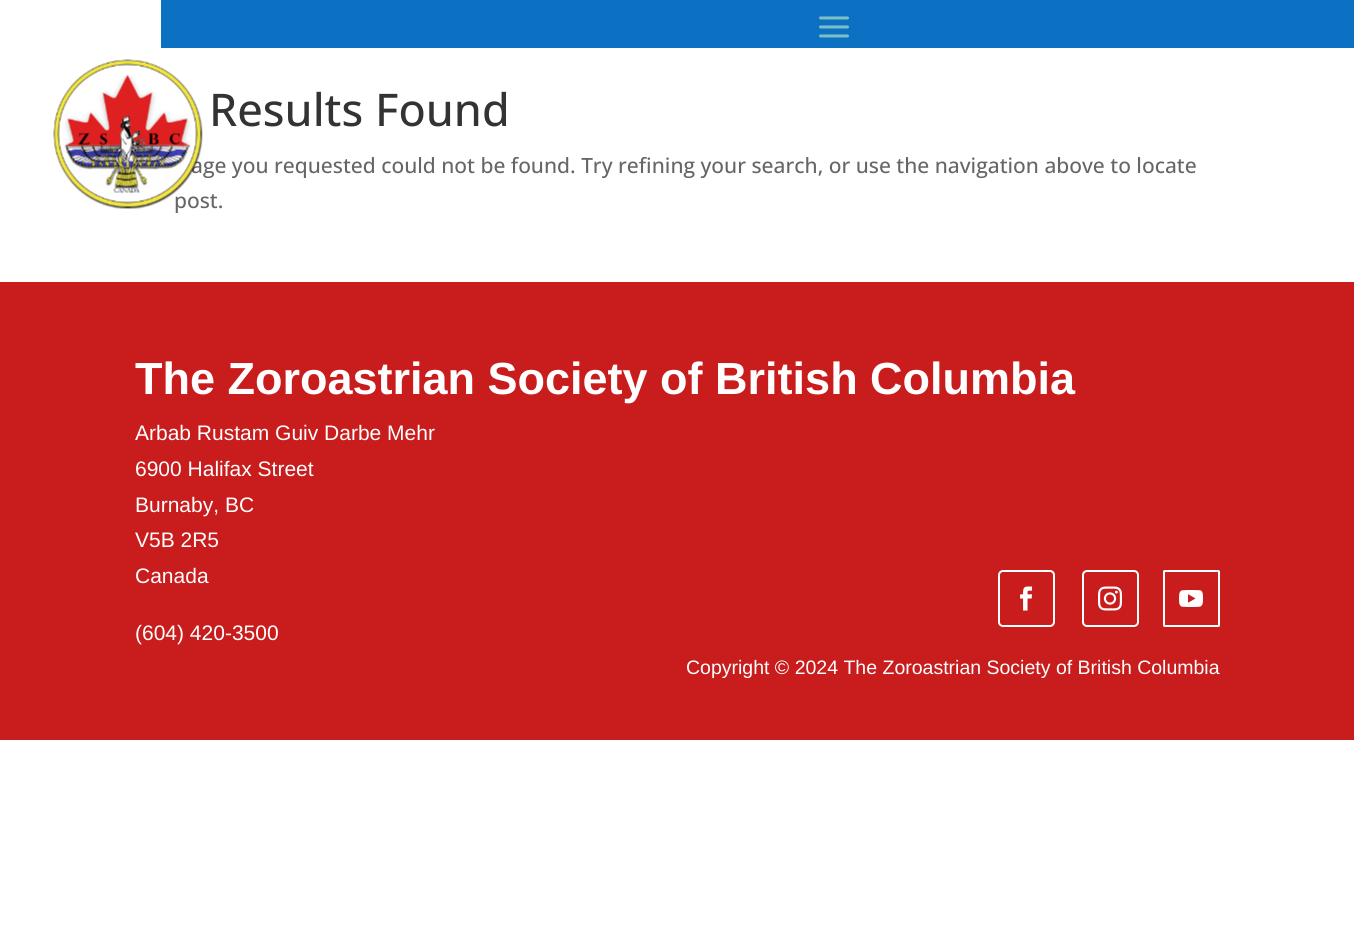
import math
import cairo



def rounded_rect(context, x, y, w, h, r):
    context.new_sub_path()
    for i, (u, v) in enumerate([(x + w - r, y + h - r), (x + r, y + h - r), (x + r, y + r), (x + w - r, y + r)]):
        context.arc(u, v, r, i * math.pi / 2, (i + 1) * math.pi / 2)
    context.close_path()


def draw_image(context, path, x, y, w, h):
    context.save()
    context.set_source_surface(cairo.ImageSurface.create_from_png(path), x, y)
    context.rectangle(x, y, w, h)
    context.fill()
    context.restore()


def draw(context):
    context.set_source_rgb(1, 1, 1)
    context.paint()
    context.set_source_rgb(12 / 255, 113 / 255, 195 / 255)
    context.rectangle(161, 0, 1193, 48)
    context.fill()
    draw_image(context, "images/1.png", 819, 16, 30, 22)
    context.set_source_rgb(201 / 255, 28 / 255, 28 / 255)
    context.rectangle(0, 282, 1354, 458)
    context.fill()
    rounded_rect(context, 999, 571, 55, 55, 4)
    context.set_source_rgb(1, 1, 1)
    context.stroke()
    draw_image(context, "images/3.png", 1020, 586, 13, 25)
    rounded_rect(context, 1083, 571, 55, 55, 4)
    context.stroke()
    draw_image(context, "images/4.png", 1098, 586, 24, 25)
    rounded_rect(context, 1164, 571, 55, 55, 0.5)
    context.stroke()
    draw_image(context, "images/5.png", 1179, 590, 24, 17)
    context.select_font_face("Open Sans Medium")
    context.set_font_size(45)
    context.set_source_rgb(51 / 255, 51 / 255, 51 / 255)
    context.move_to(209, 126)
    context.show_text("Results Found")
    context.set_font_size(21)
    context.set_source_rgb(102 / 255, 102 / 255, 102 / 255)
    context.move_to(191, 173)
    context.show_text("age you requested could not be found. Try refining your search, or use the navigation above to locate")
    context.move_to(174, 208)
    context.show_text("post.")
    draw_image(context, "images/2.png", 53, 59, 150, 150)
    context.select_font_face("Liberation Sans", cairo.FontSlant.NORMAL, cairo.FontWeight.BOLD)
    context.set_font_size(45)
    context.set_source_rgb(1, 1, 1)
    context.move_to(135, 394)
    context.show_text("The Zoroastrian Society of British Columbia")
    context.select_font_face("Liberation Sans")
    context.set_font_size(21)
    context.move_to(135, 440)
    context.show_text("Arbab Rustam Guiv Darbe Mehr")
    context.move_to(135, 476)
    context.show_text("6900 Halifax Street")
    context.move_to(135, 512)
    context.show_text("Burnaby, BC")
    context.move_to(135, 547)
    context.show_text("V5B 2R5")
    context.move_to(135, 583)
    context.show_text("Canada")
    context.move_to(135, 640)
    context.show_text("(604) 420-3500")
    context.set_font_size(19.5)
    context.move_to(686, 674)
    context.show_text("Copyright © 2024 The Zoroastrian Society of British Columbia")


surface = cairo.ImageSurface(cairo.Format.RGB24, 1354, 932)
context = cairo.Context(surface)
options = cairo.FontOptions()
options.set_hint_metrics(cairo.HintMetrics.OFF)
options.set_hint_style(cairo.HintStyle.NONE)
context.set_font_options(options)
context.set_miter_limit(4)
draw(context)
surface.write_to_png("out.png")
